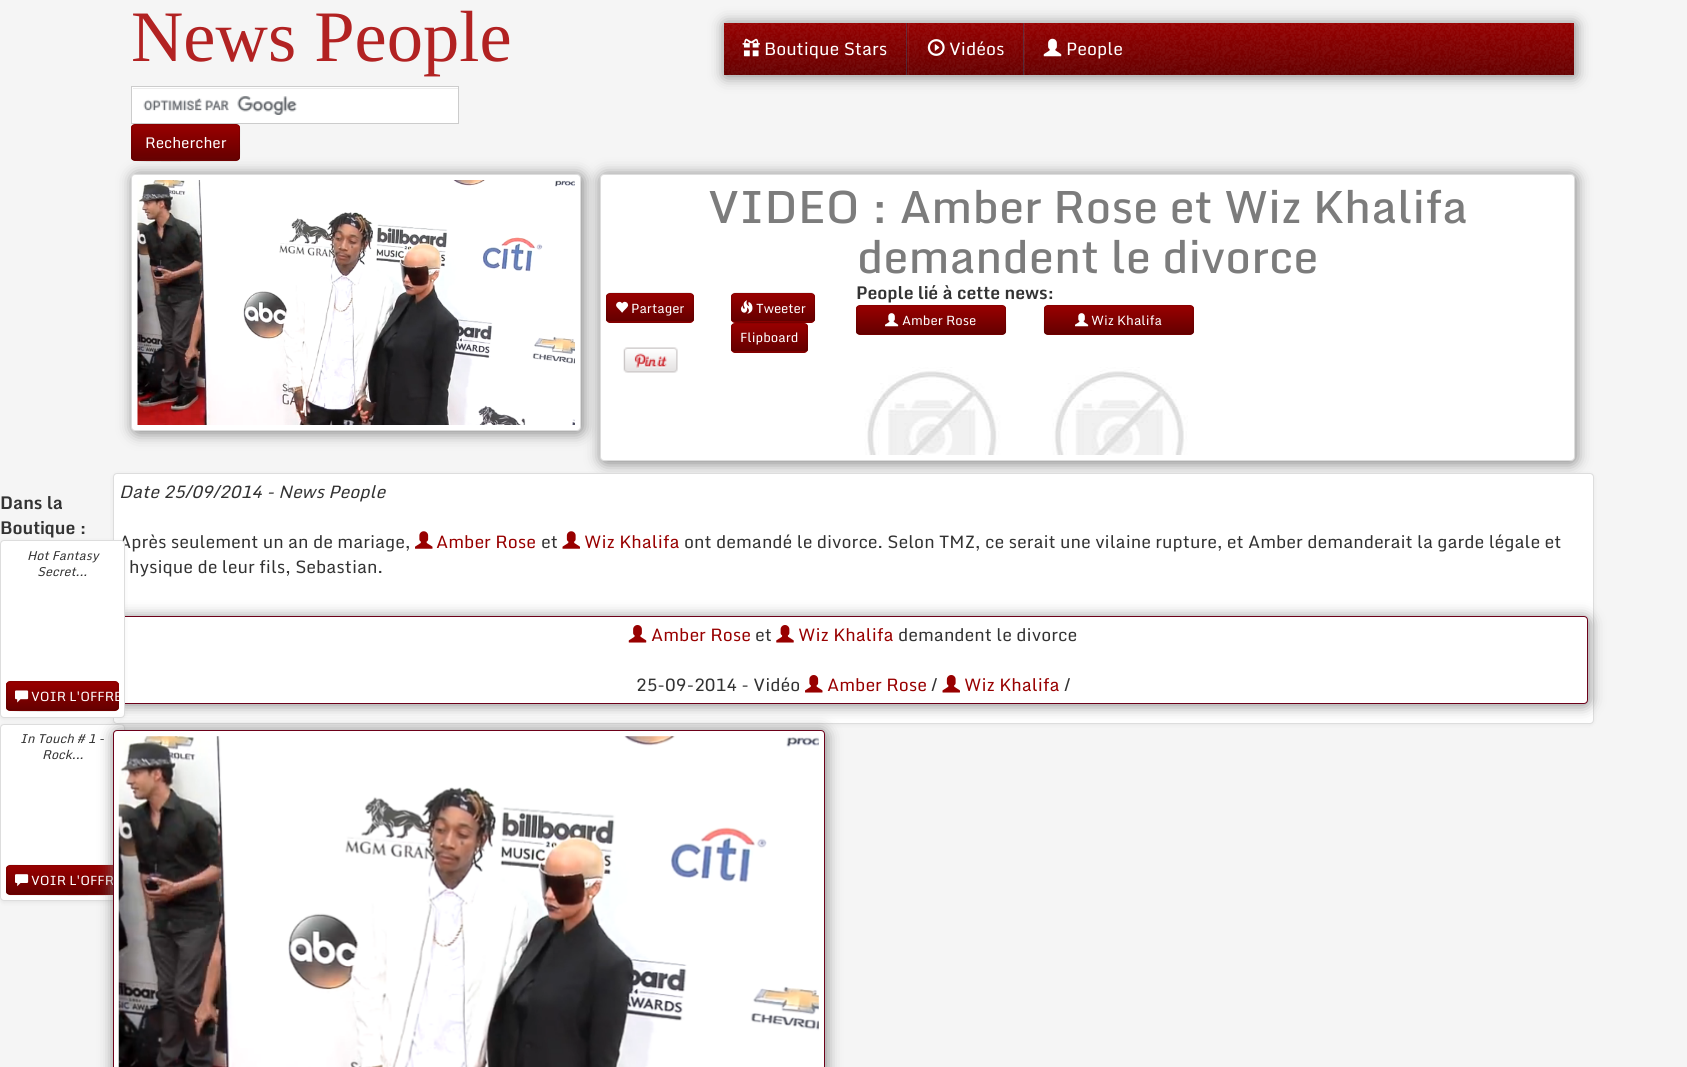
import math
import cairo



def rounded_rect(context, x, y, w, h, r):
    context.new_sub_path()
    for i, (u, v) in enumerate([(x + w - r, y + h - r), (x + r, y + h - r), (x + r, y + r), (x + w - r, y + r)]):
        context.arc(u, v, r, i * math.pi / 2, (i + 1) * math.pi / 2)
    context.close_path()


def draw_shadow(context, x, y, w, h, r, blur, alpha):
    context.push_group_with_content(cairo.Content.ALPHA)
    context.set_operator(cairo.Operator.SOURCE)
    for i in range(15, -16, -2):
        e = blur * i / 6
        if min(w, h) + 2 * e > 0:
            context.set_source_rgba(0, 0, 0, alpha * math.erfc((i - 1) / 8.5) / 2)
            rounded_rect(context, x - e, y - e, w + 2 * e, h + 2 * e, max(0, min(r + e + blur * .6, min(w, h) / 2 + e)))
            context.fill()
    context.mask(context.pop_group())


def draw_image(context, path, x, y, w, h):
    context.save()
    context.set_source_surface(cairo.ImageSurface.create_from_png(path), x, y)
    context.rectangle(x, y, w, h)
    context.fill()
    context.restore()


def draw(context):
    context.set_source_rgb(245 / 255, 245 / 255, 245 / 255)
    context.paint()
    context.set_source_rgb(1, 1, 1)
    context.rectangle(132, 87, 326, 36)
    context.fill()
    draw_image(context, "images/1.png", 143, 96, 154, 19)
    context.set_source_rgb(236 / 255, 236 / 255, 236 / 255)
    context.rectangle(133, 88, 325, 1)
    context.fill()
    context.set_source_rgb(152 / 255, 0, 0)
    rounded_rect(context, 131, 124, 109, 37, 4)
    context.fill()
    context.save()
    rounded_rect(context, 131, 124, 109, 37, 4)
    context.clip()
    gradient = cairo.LinearGradient(186, 125, 186, 160)
    gradient.add_color_stop_rgba(0, 152 / 255, 0, 0, 1)
    gradient.add_color_stop_rgba(1, 101 / 255, 0, 0, 1)
    context.set_source(gradient)
    context.rectangle(131, 125, 109, 35)
    context.fill()
    context.restore()
    context.new_path()
    context.move_to(238.5, 159.5)
    context.line_to(236, 160.5)
    context.line_to(219.5, 160.5)
    context.curve_to(210.5, 160.5, 135.5, 161.5, 133.5, 160)
    context.line_to(133, 159.5)
    context.set_source_rgba(0, 0, 0, 0.25)
    context.set_line_width(1.2)
    context.stroke()
    context.new_path()
    context.move_to(133, 159.5)
    context.curve_to(130.5, 157.5, 132, 150, 132, 147.5)
    context.line_to(132, 132.5)
    context.curve_to(132, 130, 131, 124.5, 135, 124.5)
    context.line_to(219.5, 124.5)
    context.curve_to(243, 124.5, 239.5, 120.5, 239.5, 142.5)
    context.curve_to(239.5, 145.5, 240.5, 157.5, 238.5, 159.5)
    context.set_source_rgba(0, 0, 0, 0.1)
    context.stroke()
    context.rectangle(131.5, 86.5, 327, 37)
    context.set_source_rgb(204 / 255, 204 / 255, 204 / 255)
    context.set_line_width(1)
    context.stroke()
    gradient = cairo.LinearGradient(1149, 22, 1149, 75)
    gradient.add_color_stop_rgba(0, 152 / 255, 0, 0, 1)
    gradient.add_color_stop_rgba(1, 101 / 255, 0, 0, 1)
    context.set_source(gradient)
    context.rectangle(724, 23, 850, 52)
    context.fill()
    context.save()
    context.set_fill_rule(cairo.FillRule.EVEN_ODD)
    context.new_path()
    context.move_to(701, 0)
    context.line_to(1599, 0)
    context.line_to(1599, 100)
    context.line_to(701, 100)
    context.close_path()
    context.move_to(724, 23)
    context.line_to(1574, 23)
    context.line_to(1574, 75)
    context.line_to(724, 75)
    context.close_path()
    context.clip()
    context.set_source_rgb(128 / 255, 128 / 255, 128 / 255)
    draw_shadow(context, 725, 24, 850, 52, 0, 7.5, 1)
    context.restore()
    draw_image(context, "images/2.png", 724, 23, 850, 52)
    context.set_source_rgba(42 / 255, 96 / 255, 130 / 255, 0.4)
    context.rectangle(906, 23, 1, 52)
    context.fill()
    draw_image(context, "images/3.png", 742, 38, 18, 19)
    context.rectangle(1023, 23, 1, 52)
    context.fill()
    context.set_source_rgba(1, 1, 1, 0.06)
    context.rectangle(908, 23, 1, 52)
    context.fill()
    draw_image(context, "images/4.png", 927, 39, 18, 17)
    context.rectangle(1024, 23, 1, 52)
    context.fill()
    draw_image(context, "images/5.png", 1043, 38, 19, 19)
    context.set_source_rgb(128 / 255, 128 / 255, 128 / 255)
    draw_shadow(context, 133, 175, 450, 258, 4, 7.5, 1)
    context.set_source_rgb(1, 1, 1)
    rounded_rect(context, 131.5, 174.5, 449, 256, 3.5)
    context.fill_preserve()
    context.set_source_rgb(221 / 255, 221 / 255, 221 / 255)
    context.stroke()
    draw_image(context, "images/6.png", 137, 180, 438, 245)
    context.set_source_rgb(128 / 255, 128 / 255, 128 / 255)
    draw_shadow(context, 601, 175, 975, 288, 4, 7.5, 1)
    context.set_source_rgb(1, 1, 1)
    rounded_rect(context, 600.5, 174.5, 974, 286, 3.5)
    context.fill_preserve()
    context.set_source_rgb(221 / 255, 221 / 255, 221 / 255)
    context.stroke()
    context.set_source_rgb(152 / 255, 0, 0)
    rounded_rect(context, 606, 293, 88, 30, 4)
    context.fill()
    context.save()
    rounded_rect(context, 606, 293, 88, 30, 4)
    context.clip()
    gradient = cairo.LinearGradient(650, 294, 650, 321)
    gradient.add_color_stop_rgba(0, 152 / 255, 0, 0, 1)
    gradient.add_color_stop_rgba(1, 101 / 255, 0, 0, 1)
    context.set_source(gradient)
    context.rectangle(606, 294, 88, 27)
    context.fill()
    context.restore()
    context.new_path()
    context.move_to(692, 321)
    context.curve_to(690, 323, 631, 322, 623.5, 322)
    context.line_to(610, 322)
    context.line_to(608, 321)
    context.set_source_rgb(114 / 255, 0, 0)
    context.set_line_width(1.2)
    context.stroke()
    context.new_path()
    context.move_to(608, 321)
    context.curve_to(605.5, 318.5, 607, 314, 607, 311)
    context.curve_to(607, 290.5, 603, 293, 623.5, 293)
    context.line_to(676.5, 293)
    context.curve_to(695.5, 293, 693, 290, 693, 307.5)
    context.curve_to(693, 310, 694.5, 319, 692, 321)
    context.set_source_rgba(0, 0, 0, 0.1)
    context.stroke()
    draw_image(context, "images/7.png", 616, 301, 13, 12)
    context.set_source_rgb(152 / 255, 0, 0)
    rounded_rect(context, 731, 293, 84, 30, 4)
    context.fill()
    context.save()
    rounded_rect(context, 731, 293, 84, 30, 4)
    context.clip()
    gradient = cairo.LinearGradient(773, 294, 773, 321)
    gradient.add_color_stop_rgba(0, 152 / 255, 0, 0, 1)
    gradient.add_color_stop_rgba(1, 101 / 255, 0, 0, 1)
    context.set_source(gradient)
    context.rectangle(731, 294, 84, 27)
    context.fill()
    context.restore()
    context.new_path()
    context.move_to(813.5, 321)
    context.line_to(811, 322)
    context.line_to(798.5, 322)
    context.curve_to(791, 322, 735, 323, 733, 321)
    context.set_source_rgb(114 / 255, 0, 0)
    context.stroke()
    context.new_path()
    context.move_to(733, 321)
    context.curve_to(730.5, 318.5, 732, 314, 732, 311)
    context.curve_to(732, 291, 727.5, 293, 747.5, 293)
    context.line_to(798.5, 293)
    context.curve_to(817, 293, 814.5, 290.5, 814.5, 307.5)
    context.curve_to(814.5, 310, 815.5, 319, 813.5, 321)
    context.set_source_rgba(0, 0, 0, 0.1)
    context.stroke()
    draw_image(context, "images/8.png", 741, 300, 12, 14)
    context.set_source_rgb(152 / 255, 0, 0)
    rounded_rect(context, 731, 323, 77, 30, 4)
    context.fill()
    context.save()
    rounded_rect(context, 731, 323, 77, 30, 4)
    context.clip()
    gradient = cairo.LinearGradient(769, 324, 769, 351)
    gradient.add_color_stop_rgba(0, 152 / 255, 0, 0, 1)
    gradient.add_color_stop_rgba(1, 101 / 255, 0, 0, 1)
    context.set_source(gradient)
    context.rectangle(731, 324, 77, 27)
    context.fill()
    context.restore()
    context.new_path()
    context.move_to(806, 351)
    context.line_to(804, 352)
    context.line_to(734.5, 352)
    context.line_to(733, 351)
    context.set_source_rgba(0, 0, 0, 0.25)
    context.stroke()
    context.new_path()
    context.move_to(733, 351)
    context.curve_to(730.5, 349, 732, 340, 732, 337.5)
    context.curve_to(732, 321, 729.5, 323, 746.5, 323)
    context.line_to(792.5, 323)
    context.curve_to(809.5, 323, 807, 321, 807, 337.5)
    context.curve_to(807, 340, 808, 349, 806, 351)
    context.set_source_rgba(0, 0, 0, 0.1)
    context.stroke()
    draw_image(context, "images/9.png", 623, 347, 55, 26)
    context.set_source_rgb(152 / 255, 0, 0)
    rounded_rect(context, 856, 305, 150, 30, 4)
    context.fill()
    context.save()
    rounded_rect(context, 856, 305, 150, 30, 4)
    context.clip()
    gradient = cairo.LinearGradient(931, 306, 931, 334)
    gradient.add_color_stop_rgba(0, 152 / 255, 0, 0, 1)
    gradient.add_color_stop_rgba(1, 101 / 255, 0, 0, 1)
    context.set_source(gradient)
    context.rectangle(856, 306, 150, 28)
    context.fill()
    context.restore()
    context.new_path()
    context.move_to(1004.5, 333.5)
    context.line_to(1002.5, 334.5)
    context.line_to(860, 334.5)
    context.line_to(858, 333.5)
    context.set_source_rgba(0, 0, 0, 0.25)
    context.stroke()
    context.new_path()
    context.move_to(858, 333.5)
    context.curve_to(855.5, 331.5, 857, 322.5, 857, 320)
    context.line_to(857, 312.5)
    context.curve_to(857, 310, 856.5, 305.5, 860, 305.5)
    context.line_to(1002.5, 305.5)
    context.curve_to(1006, 305.5, 1005.5, 310, 1005.5, 312.5)
    context.line_to(1005.5, 320)
    context.curve_to(1005.5, 322.5, 1007, 331.5, 1004.5, 333.5)
    context.set_source_rgba(0, 0, 0, 0.1)
    context.stroke()
    draw_image(context, "images/10.png", 885, 313, 14, 14)
    draw_image(context, "images/11.png", 860, 335, 143, 120)
    context.set_source_rgb(152 / 255, 0, 0)
    rounded_rect(context, 1044, 305, 150, 30, 4)
    context.fill()
    context.save()
    rounded_rect(context, 1044, 305, 150, 30, 4)
    context.clip()
    gradient = cairo.LinearGradient(1119, 306, 1119, 334)
    gradient.add_color_stop_rgba(0, 152 / 255, 0, 0, 1)
    gradient.add_color_stop_rgba(1, 101 / 255, 0, 0, 1)
    context.set_source(gradient)
    context.rectangle(1044, 306, 150, 28)
    context.fill()
    context.restore()
    context.new_path()
    context.move_to(1192, 333.5)
    context.line_to(1190, 334.5)
    context.line_to(1047.5, 334.5)
    context.line_to(1045.5, 333.5)
    context.set_source_rgba(0, 0, 0, 0.25)
    context.stroke()
    context.new_path()
    context.move_to(1045.5, 333.5)
    context.curve_to(1043, 331.5, 1044.5, 322.5, 1044.5, 320)
    context.line_to(1044.5, 312.5)
    context.curve_to(1044.5, 310, 1044, 305.5, 1047.5, 305.5)
    context.line_to(1190, 305.5)
    context.curve_to(1193.5, 305.5, 1193, 310, 1193, 312.5)
    context.line_to(1193, 320)
    context.curve_to(1193, 322.5, 1194.5, 331.5, 1192, 333.5)
    context.set_source_rgba(0, 0, 0, 0.1)
    context.stroke()
    draw_image(context, "images/10.png", 1075, 313, 14, 14)
    draw_image(context, "images/12.png", 1047, 335, 143, 120)
    context.set_source_rgb(0, 0, 0)
    draw_shadow(context, 113, 474, 1481, 251, 4, 2, 0.06)
    context.set_source_rgb(1, 1, 1)
    rounded_rect(context, 113.5, 473.5, 1480, 250, 3.5)
    context.fill_preserve()
    context.set_source_rgb(221 / 255, 221 / 255, 221 / 255)
    context.set_line_width(1)
    context.stroke()
    context.set_source_rgb(128 / 255, 128 / 255, 128 / 255)
    draw_shadow(context, 120, 618, 1469, 87, 4, 7.5, 1)
    context.set_source_rgb(1, 1, 1)
    rounded_rect(context, 119.5, 616.5, 1468, 87, 3.5)
    context.fill_preserve()
    context.set_source_rgb(109 / 255, 0, 25 / 255)
    context.stroke()
    context.set_source_rgb(0, 0, 0)
    draw_shadow(context, 0, 541, 125, 178, 4, 2, 0.06)
    draw_shadow(context, 0, 725, 125, 178, 4, 2, 0.06)
    context.set_source_rgb(1, 1, 1)
    rounded_rect(context, 0.5, 724.5, 124, 176, 3.5)
    context.fill_preserve()
    context.set_source_rgb(221 / 255, 221 / 255, 221 / 255)
    context.stroke()
    context.set_source_rgb(152 / 255, 0, 0)
    rounded_rect(context, 6, 865, 113, 30, 4)
    context.fill()
    context.save()
    rounded_rect(context, 6, 865, 113, 30, 4)
    context.clip()
    gradient = cairo.LinearGradient(63, 866, 63, 894)
    gradient.add_color_stop_rgba(0, 152 / 255, 0, 0, 1)
    gradient.add_color_stop_rgba(1, 101 / 255, 0, 0, 1)
    context.set_source(gradient)
    context.rectangle(6, 866, 107, 28)
    context.fill()
    context.restore()
    context.new_path()
    context.move_to(117, 893.5)
    context.line_to(116.5, 894)
    context.curve_to(114.5, 895.5, 37, 894.5, 27.5, 894.5)
    context.line_to(10, 894.5)
    context.line_to(8, 893.5)
    context.set_source_rgba(0, 0, 0, 0.25)
    context.set_line_width(1.2)
    context.stroke()
    context.new_path()
    context.move_to(8, 893.5)
    context.curve_to(5.5, 891.5, 7, 882.5, 7, 880)
    context.curve_to(7, 861, 5, 865.5, 27.5, 865.5)
    context.line_to(97.5, 865.5)
    context.curve_to(120, 865.5, 118, 861, 118, 880)
    context.curve_to(118, 882.5, 119.5, 891.5, 117, 893.5)
    context.set_source_rgba(0, 0, 0, 0.1)
    context.stroke()
    draw_image(context, "images/14.png", 15, 874, 14, 13)
    draw_image(context, "images/15.png", 415, 531, 18, 18)
    draw_image(context, "images/16.png", 562, 531, 18, 18)
    draw_image(context, "images/17.png", 628, 625, 19, 18)
    draw_image(context, "images/18.png", 776, 625, 18, 18)
    draw_image(context, "images/19.png", 805, 675, 18, 18)
    draw_image(context, "images/20.png", 942, 675, 18, 18)
    context.select_font_face("Liberation Serif")
    context.set_font_size(72.5)
    context.set_source_rgb(178 / 255, 34 / 255, 34 / 255)
    context.move_to(131, 61)
    context.show_text("News People")
    context.select_font_face("Monda")
    context.set_font_size(15)
    context.set_source_rgb(1, 1, 1)
    context.move_to(145, 148)
    context.show_text("Rechercher")
    context.set_font_size(17.5)
    context.move_to(764, 55)
    context.show_text("Boutique Stars")
    context.move_to(949, 55)
    context.show_text("Vidéos")
    context.move_to(1066, 55)
    context.show_text("People")
    context.select_font_face("Monda Medium")
    context.set_font_size(45)
    context.set_source_rgb(124 / 255, 124 / 255, 124 / 255)
    context.move_to(708, 223)
    context.show_text("VIDEO : Amber Rose et Wiz Khalifa")
    context.move_to(857, 273)
    context.show_text("demandent le divorce")
    context.select_font_face("Monda")
    context.set_font_size(13)
    context.set_source_rgb(1, 1, 1)
    context.move_to(631, 313)
    context.show_text("Partager")
    context.move_to(756, 313)
    context.show_text("Tweeter")
    context.move_to(740, 342)
    context.show_text("Flipboard")
    context.select_font_face("Monda", cairo.FontSlant.NORMAL, cairo.FontWeight.BOLD)
    context.set_font_size(17.5)
    context.set_source_rgb(51 / 255, 51 / 255, 51 / 255)
    context.move_to(856, 299)
    context.show_text("People lié à cette news:")
    context.select_font_face("Monda")
    context.set_font_size(13)
    context.set_source_rgb(1, 1, 1)
    context.move_to(902, 325)
    context.show_text("Amber Rose")
    context.move_to(1091, 325)
    context.show_text("Wiz Khalifa")
    context.select_font_face("Monda", cairo.FontSlant.NORMAL, cairo.FontWeight.BOLD)
    context.set_font_size(17.5)
    context.set_source_rgb(51 / 255, 51 / 255, 51 / 255)
    context.move_to(0, 509)
    context.show_text("Dans la")
    context.move_to(0, 534)
    context.show_text("Boutique :")
    context.select_font_face("Monda", cairo.FontSlant.ITALIC)
    context.set_font_size(12.5)
    context.move_to(20, 743)
    context.show_text("In Touch # 1 -")
    context.move_to(42, 759)
    context.show_text("Rock...")
    context.select_font_face("Monda")
    context.set_font_size(13)
    context.set_source_rgb(1, 1, 1)
    context.move_to(31, 885)
    context.show_text("VOIR L'OFFR")
    context.select_font_face("Monda", cairo.FontSlant.ITALIC)
    context.set_font_size(17.5)
    context.set_source_rgb(51 / 255, 51 / 255, 51 / 255)
    context.move_to(119, 498)
    context.show_text("Date 25/09/2014 - News People")
    context.select_font_face("Monda")
    context.move_to(119, 548)
    context.show_text("Après seulement un an de mariage,")
    context.set_source_rgb(1, 1, 1)
    rounded_rect(context, 0.5, 540.5, 124, 177, 3.5)
    context.fill_preserve()
    context.set_source_rgb(221 / 255, 221 / 255, 221 / 255)
    context.set_line_width(1)
    context.stroke()
    context.set_source_rgb(152 / 255, 0, 0)
    rounded_rect(context, 6, 681, 113, 30, 4)
    context.fill()
    context.save()
    rounded_rect(context, 6, 681, 113, 30, 4)
    context.clip()
    gradient = cairo.LinearGradient(63, 683, 63, 710)
    gradient.add_color_stop_rgba(0, 152 / 255, 0, 0, 1)
    gradient.add_color_stop_rgba(1, 101 / 255, 0, 0, 1)
    context.set_source(gradient)
    context.rectangle(6, 683, 113, 27)
    context.fill()
    context.restore()
    context.new_path()
    context.move_to(117, 709.5)
    context.line_to(115, 710.5)
    context.line_to(97.5, 710.5)
    context.curve_to(88, 710.5, 10.5, 711.5, 8.5, 710)
    context.line_to(8, 709.5)
    context.set_source_rgba(0, 0, 0, 0.25)
    context.set_line_width(1.2)
    context.stroke()
    context.new_path()
    context.move_to(8, 709.5)
    context.curve_to(5.5, 707.5, 7, 699, 7, 696)
    context.curve_to(7, 677.5, 5, 682, 27.5, 682)
    context.line_to(97.5, 682)
    context.curve_to(120, 682, 118, 677.5, 118, 696)
    context.curve_to(118, 699, 119.5, 707.5, 117, 709.5)
    context.set_source_rgba(0, 0, 0, 0.1)
    context.stroke()
    draw_image(context, "images/13.png", 15, 690, 14, 13)
    context.select_font_face("Monda", cairo.FontSlant.ITALIC)
    context.set_font_size(12.5)
    context.set_source_rgb(51 / 255, 51 / 255, 51 / 255)
    context.move_to(37, 576)
    context.show_text("Secret...")
    context.move_to(27, 560)
    context.show_text("Hot Fantasy")
    context.select_font_face("Monda")
    context.set_font_size(13)
    context.set_source_rgb(1, 1, 1)
    context.move_to(31, 701)
    context.show_text("VOIR L'OFFRE")
    context.set_font_size(17.5)
    context.set_source_rgb(152 / 255, 0, 0)
    context.move_to(436, 548)
    context.show_text("Amber Rose")
    context.set_source_rgb(51 / 255, 51 / 255, 51 / 255)
    context.move_to(541, 548)
    context.show_text("et")
    context.set_source_rgb(152 / 255, 0, 0)
    context.move_to(584, 548)
    context.show_text("Wiz Khalifa")
    context.set_source_rgb(51 / 255, 51 / 255, 51 / 255)
    context.move_to(684, 548)
    context.show_text("ont demandé le divorce. Selon TMZ, ce serait une vilaine rupture, et Amber demanderait la garde légale et")
    context.move_to(129, 573)
    context.show_text("hysique de leur fils, Sebastian.")
    context.set_source_rgb(152 / 255, 0, 0)
    context.move_to(651, 641)
    context.show_text("Amber Rose")
    context.set_source_rgb(51 / 255, 51 / 255, 51 / 255)
    context.move_to(755, 641)
    context.show_text("et")
    context.set_source_rgb(152 / 255, 0, 0)
    context.move_to(798, 641)
    context.show_text("Wiz Khalifa")
    context.set_source_rgb(51 / 255, 51 / 255, 51 / 255)
    context.move_to(898, 641)
    context.show_text("demandent le divorce")
    context.move_to(636, 691)
    context.show_text("25-09-2014 - Vidéo")
    context.set_source_rgb(152 / 255, 0, 0)
    context.move_to(827, 691)
    context.show_text("Amber Rose")
    context.set_source_rgb(51 / 255, 51 / 255, 51 / 255)
    context.move_to(931, 691)
    context.show_text("/")
    context.set_source_rgb(152 / 255, 0, 0)
    context.move_to(964, 691)
    context.show_text("Wiz Khalifa")
    context.set_source_rgb(51 / 255, 51 / 255, 51 / 255)
    context.move_to(1064, 691)
    context.show_text("/")
    context.set_source_rgb(128 / 255, 128 / 255, 128 / 255)
    draw_shadow(context, 114, 731, 712, 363, 4, 7.5, 1)
    context.set_source_rgb(1, 1, 1)
    rounded_rect(context, 113.5, 730.5, 711, 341, 3.5)
    context.fill_preserve()
    context.set_source_rgb(109 / 255, 0, 25 / 255)
    context.set_line_width(1)
    context.stroke()
    draw_image(context, "images/21.png", 118, 736, 701, 331)


surface = cairo.ImageSurface(cairo.Format.RGB24, 1687, 1067)
context = cairo.Context(surface)
options = cairo.FontOptions()
options.set_hint_metrics(cairo.HintMetrics.OFF)
options.set_hint_style(cairo.HintStyle.NONE)
context.set_font_options(options)
context.set_miter_limit(4)
draw(context)
surface.write_to_png("out.png")
